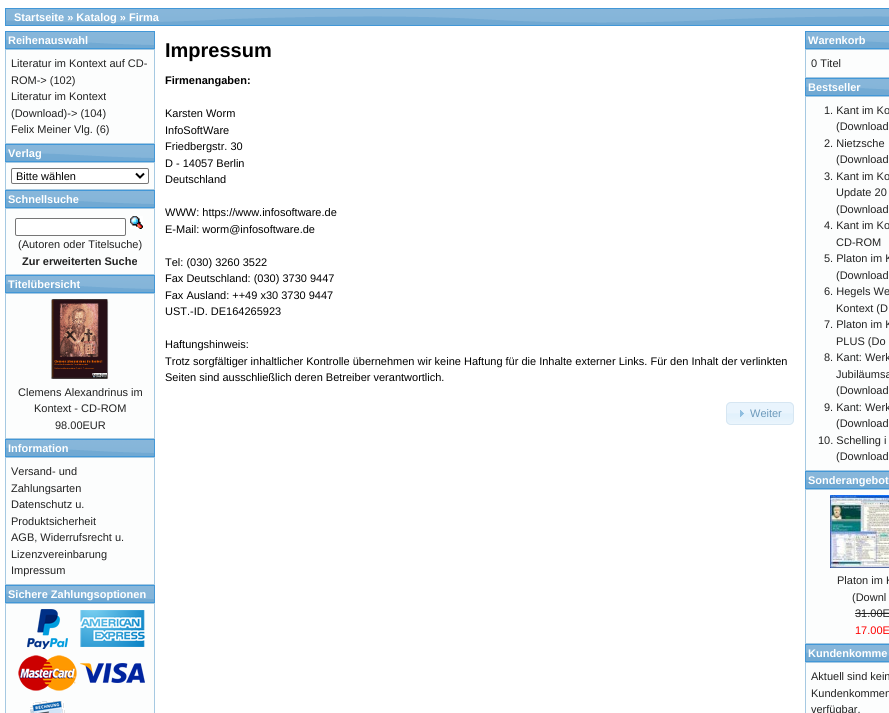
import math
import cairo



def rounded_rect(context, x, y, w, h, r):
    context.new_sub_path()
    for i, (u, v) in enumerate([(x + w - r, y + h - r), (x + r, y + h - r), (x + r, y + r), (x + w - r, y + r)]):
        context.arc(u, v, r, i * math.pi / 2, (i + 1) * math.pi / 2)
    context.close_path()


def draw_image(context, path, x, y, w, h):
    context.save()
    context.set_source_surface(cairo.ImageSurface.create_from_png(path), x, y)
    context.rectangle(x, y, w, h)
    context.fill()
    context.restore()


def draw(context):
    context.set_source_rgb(1, 1, 1)
    context.paint()
    draw_image(context, "images/1.png", 6, 9, 883, 16)
    context.rectangle(5.5, 8.5, 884, 17)
    context.set_source_rgb(66 / 255, 151 / 255, 215 / 255)
    context.set_line_width(1)
    context.stroke()
    draw_image(context, "images/2.png", 6, 32, 148, 16)
    context.rectangle(5.5, 31.5, 149, 17)
    context.stroke()
    context.set_source_rgb(252 / 255, 253 / 255, 253 / 255)
    context.rectangle(5.5, 49.5, 149, 94)
    context.fill_preserve()
    context.set_source_rgb(166 / 255, 201 / 255, 226 / 255)
    context.stroke()
    draw_image(context, "images/2.png", 6, 145, 148, 16)
    context.rectangle(5.5, 144.5, 149, 17)
    context.set_source_rgb(66 / 255, 151 / 255, 215 / 255)
    context.stroke()
    context.set_source_rgb(252 / 255, 253 / 255, 253 / 255)
    context.rectangle(5.5, 162.5, 149, 27)
    context.fill_preserve()
    context.set_source_rgb(166 / 255, 201 / 255, 226 / 255)
    context.stroke()
    context.set_source_rgb(1, 1, 1)
    rounded_rect(context, 11.5, 168.5, 137, 15, 1.5)
    context.fill_preserve()
    context.set_source_rgb(118 / 255, 118 / 255, 118 / 255)
    context.stroke()
    context.new_path()
    context.move_to(136, 173.5)
    context.line_to(140, 177.5)
    context.line_to(144, 173.5)
    context.set_source_rgb(0, 0, 0)
    context.set_line_width(2)
    context.stroke()
    draw_image(context, "images/2.png", 6, 191, 148, 16)
    context.rectangle(5.5, 190.5, 149, 17)
    context.set_source_rgb(66 / 255, 151 / 255, 215 / 255)
    context.set_line_width(1)
    context.stroke()
    context.set_source_rgb(252 / 255, 253 / 255, 253 / 255)
    context.rectangle(5.5, 208.5, 149, 66)
    context.fill_preserve()
    context.set_source_rgb(166 / 255, 201 / 255, 226 / 255)
    context.stroke()
    context.set_source_rgb(1, 1, 1)
    rounded_rect(context, 15.5, 218.5, 110, 17, 1.5)
    context.fill_preserve()
    context.set_source_rgb(118 / 255, 118 / 255, 118 / 255)
    context.stroke()
    draw_image(context, "images/3.png", 130, 216, 13, 13)
    draw_image(context, "images/2.png", 6, 276, 148, 16)
    context.rectangle(5.5, 275.5, 149, 17)
    context.set_source_rgb(66 / 255, 151 / 255, 215 / 255)
    context.stroke()
    context.set_source_rgb(252 / 255, 253 / 255, 253 / 255)
    context.rectangle(5.5, 293.5, 149, 145)
    context.fill_preserve()
    context.set_source_rgb(166 / 255, 201 / 255, 226 / 255)
    context.stroke()
    draw_image(context, "images/4.png", 51, 299, 58, 80)
    draw_image(context, "images/2.png", 6, 440, 148, 16)
    context.rectangle(5.5, 439.5, 149, 17)
    context.set_source_rgb(66 / 255, 151 / 255, 215 / 255)
    context.stroke()
    context.set_source_rgb(252 / 255, 253 / 255, 253 / 255)
    context.rectangle(5.5, 457.5, 149, 127)
    context.fill_preserve()
    context.set_source_rgb(166 / 255, 201 / 255, 226 / 255)
    context.stroke()
    draw_image(context, "images/2.png", 6, 586, 148, 16)
    context.rectangle(5.5, 585.5, 149, 17)
    context.set_source_rgb(66 / 255, 151 / 255, 215 / 255)
    context.stroke()
    context.set_source_rgb(252 / 255, 253 / 255, 253 / 255)
    context.rectangle(5.5, 603.5, 149, 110)
    context.fill_preserve()
    context.set_source_rgb(166 / 255, 201 / 255, 226 / 255)
    context.stroke()
    draw_image(context, "images/5.png", 27, 609, 41, 40)
    draw_image(context, "images/6.png", 80, 610, 65, 37)
    draw_image(context, "images/7.png", 18, 655, 59, 36)
    draw_image(context, "images/8.png", 80, 663, 65, 20)
    draw_image(context, "images/9.png", 30, 701, 35, 12)
    context.set_source_rgb(233 / 255, 244 / 255, 253 / 255)
    rounded_rect(context, 726, 402, 68, 23, 5)
    context.fill()
    draw_image(context, "images/10.png", 726, 413, 68, 11)
    rounded_rect(context, 726.5, 402.5, 67, 22, 4.5)
    context.set_source_rgb(214 / 255, 230 / 255, 242 / 255)
    context.stroke()
    draw_image(context, "images/11.png", 740, 410, 4, 7)
    draw_image(context, "images/12.png", 806, 32, 83, 16)
    context.rectangle(805.5, 31.5, 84, 17)
    context.set_source_rgb(66 / 255, 151 / 255, 215 / 255)
    context.stroke()
    context.set_source_rgb(252 / 255, 253 / 255, 253 / 255)
    context.rectangle(805.5, 49.5, 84, 28)
    context.fill_preserve()
    context.set_source_rgb(166 / 255, 201 / 255, 226 / 255)
    context.stroke()
    draw_image(context, "images/12.png", 806, 79, 83, 16)
    context.rectangle(805.5, 78.5, 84, 17)
    context.set_source_rgb(66 / 255, 151 / 255, 215 / 255)
    context.stroke()
    context.set_source_rgb(252 / 255, 253 / 255, 253 / 255)
    context.rectangle(805.5, 96.5, 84, 374)
    context.fill_preserve()
    context.set_source_rgb(166 / 255, 201 / 255, 226 / 255)
    context.stroke()
    draw_image(context, "images/12.png", 806, 472, 83, 16)
    context.rectangle(805.5, 471.5, 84, 17)
    context.set_source_rgb(66 / 255, 151 / 255, 215 / 255)
    context.stroke()
    context.set_source_rgb(252 / 255, 253 / 255, 253 / 255)
    context.rectangle(805.5, 489.5, 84, 154)
    context.fill_preserve()
    context.set_source_rgb(166 / 255, 201 / 255, 226 / 255)
    context.stroke()
    draw_image(context, "images/13.png", 830, 495, 59, 73)
    context.set_source_rgb(34 / 255, 34 / 255, 34 / 255)
    context.rectangle(855, 613, 34, 1)
    context.fill()
    draw_image(context, "images/12.png", 806, 645, 83, 16)
    context.rectangle(805.5, 644.5, 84, 17)
    context.set_source_rgb(66 / 255, 151 / 255, 215 / 255)
    context.stroke()
    context.set_source_rgb(252 / 255, 253 / 255, 253 / 255)
    context.rectangle(805.5, 662.5, 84, 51)
    context.fill_preserve()
    context.set_source_rgb(166 / 255, 201 / 255, 226 / 255)
    context.stroke()
    context.select_font_face("Liberation Sans", cairo.FontSlant.NORMAL, cairo.FontWeight.BOLD)
    context.set_font_size(11)
    context.set_source_rgb(1, 1, 1)
    context.move_to(14, 21)
    context.show_text("Startseite » Katalog » Firma")
    context.move_to(8, 44)
    context.show_text("Reihenauswahl")
    context.select_font_face("Liberation Sans")
    context.set_source_rgb(34 / 255, 34 / 255, 34 / 255)
    context.move_to(11, 67)
    context.show_text("Literatur im Kontext auf CD-")
    context.move_to(11, 84)
    context.show_text("ROM-> (102)")
    context.move_to(11, 100)
    context.show_text("Literatur im Kontext")
    context.move_to(11, 117)
    context.show_text("(Download)-> (104)")
    context.move_to(11, 133)
    context.show_text("Felix Meiner Vlg. (6)")
    context.select_font_face("Liberation Sans", cairo.FontSlant.NORMAL, cairo.FontWeight.BOLD)
    context.set_source_rgb(1, 1, 1)
    context.move_to(8, 157)
    context.show_text("Verlag")
    context.select_font_face("Liberation Sans")
    context.set_source_rgb(0, 0, 0)
    context.move_to(16, 180)
    context.show_text("Bitte wählen")
    context.select_font_face("Liberation Sans", cairo.FontSlant.NORMAL, cairo.FontWeight.BOLD)
    context.set_source_rgb(1, 1, 1)
    context.move_to(8, 203)
    context.show_text("Schnellsuche")
    context.select_font_face("Liberation Sans")
    context.set_source_rgb(34 / 255, 34 / 255, 34 / 255)
    context.move_to(18, 248)
    context.show_text("(Autoren oder Titelsuche)")
    context.select_font_face("Liberation Sans", cairo.FontSlant.NORMAL, cairo.FontWeight.BOLD)
    context.move_to(22, 265)
    context.show_text("Zur erweiterten Suche")
    context.set_source_rgb(1, 1, 1)
    context.move_to(8, 288)
    context.show_text("Titelübersicht")
    context.select_font_face("Liberation Sans")
    context.set_source_rgb(34 / 255, 34 / 255, 34 / 255)
    context.move_to(18, 396)
    context.show_text("Clemens Alexandrinus im")
    context.move_to(34, 412)
    context.show_text("Kontext - CD-ROM")
    context.move_to(55, 429)
    context.show_text("98.00EUR")
    context.select_font_face("Liberation Sans", cairo.FontSlant.NORMAL, cairo.FontWeight.BOLD)
    context.set_source_rgb(1, 1, 1)
    context.move_to(8, 452)
    context.show_text("Information")
    context.select_font_face("Liberation Sans")
    context.set_source_rgb(34 / 255, 34 / 255, 34 / 255)
    context.move_to(11, 475)
    context.show_text("Versand- und")
    context.move_to(11, 492)
    context.show_text("Zahlungsarten")
    context.move_to(11, 508)
    context.show_text("Datenschutz u.")
    context.move_to(11, 525)
    context.show_text("Produktsicherheit")
    context.move_to(11, 541)
    context.show_text("AGB, Widerrufsrecht u.")
    context.move_to(11, 558)
    context.show_text("Lizenzvereinbarung")
    context.move_to(11, 574)
    context.show_text("Impressum")
    context.select_font_face("Liberation Sans", cairo.FontSlant.NORMAL, cairo.FontWeight.BOLD)
    context.set_source_rgb(1, 1, 1)
    context.move_to(8, 598)
    context.show_text("Sichere Zahlungsoptionen")
    context.set_font_size(20)
    context.set_source_rgb(0, 0, 0)
    context.move_to(165, 57)
    context.show_text("Impressum")
    context.set_font_size(11)
    context.move_to(165, 84)
    context.show_text("Firmenangaben:")
    context.select_font_face("Liberation Sans")
    context.move_to(165, 117)
    context.show_text("Karsten Worm")
    context.move_to(165, 134)
    context.show_text("InfoSoftWare")
    context.move_to(165, 150)
    context.show_text("Friedbergstr. 30")
    context.move_to(165, 167)
    context.show_text("D - 14057 Berlin")
    context.move_to(165, 183)
    context.show_text("Deutschland")
    context.move_to(165, 216)
    context.show_text("WWW: https://www.infosoftware.de")
    context.move_to(165, 233)
    context.show_text("E-Mail: worm@infosoftware.de")
    context.move_to(165, 266)
    context.show_text("Tel: (030) 3260 3522")
    context.move_to(165, 282)
    context.show_text("Fax Deutschland: (030) 3730 9447")
    context.move_to(165, 299)
    context.show_text("Fax Ausland: ++49 x30 3730 9447")
    context.move_to(165, 315)
    context.show_text("UST.-ID. DE164265923")
    context.move_to(165, 348)
    context.show_text("Haftungshinweis:")
    context.move_to(165, 365)
    context.show_text("Trotz sorgfältiger inhaltlicher Kontrolle übernehmen wir keine Haftung für die Inhalte externer Links. Für den Inhalt der verlinkten")
    context.move_to(165, 381)
    context.show_text("Seiten sind ausschließlich deren Betreiber verantwortlich.")
    context.set_source_rgb(109 / 255, 154 / 255, 187 / 255)
    context.move_to(750, 417)
    context.show_text("Weiter")
    context.select_font_face("Liberation Sans", cairo.FontSlant.NORMAL, cairo.FontWeight.BOLD)
    context.set_source_rgb(1, 1, 1)
    context.move_to(808, 44)
    context.show_text("Warenkorb")
    context.select_font_face("Liberation Sans")
    context.set_source_rgb(34 / 255, 34 / 255, 34 / 255)
    context.move_to(811, 67)
    context.show_text("0 Titel")
    context.select_font_face("Liberation Sans", cairo.FontSlant.NORMAL, cairo.FontWeight.BOLD)
    context.set_source_rgb(1, 1, 1)
    context.move_to(808, 91)
    context.show_text("Bestseller")
    context.select_font_face("Liberation Sans")
    context.set_source_rgb(34 / 255, 34 / 255, 34 / 255)
    context.move_to(824, 114)
    context.show_text("1. Kant im Ko")
    context.move_to(836, 130)
    context.show_text("(Download")
    context.move_to(824, 147)
    context.show_text("2. Nietzsche")
    context.move_to(836, 163)
    context.show_text("(Download")
    context.move_to(824, 180)
    context.show_text("3. Kant im Ko")
    context.move_to(836, 196)
    context.show_text("Update 20")
    context.move_to(836, 213)
    context.show_text("(Download")
    context.move_to(824, 229)
    context.show_text("4. Kant im Ko")
    context.move_to(836, 246)
    context.show_text("CD-ROM")
    context.move_to(824, 262)
    context.show_text("5. Platon im K")
    context.move_to(836, 279)
    context.show_text("(Download")
    context.move_to(824, 295)
    context.show_text("6. Hegels We")
    context.move_to(836, 312)
    context.show_text("Kontext (D")
    context.move_to(824, 328)
    context.show_text("7. Platon im K")
    context.move_to(836, 345)
    context.show_text("PLUS (Do")
    context.move_to(824, 361)
    context.show_text("8. Kant: Werk")
    context.move_to(836, 378)
    context.show_text("Jubiläumsa")
    context.move_to(836, 394)
    context.show_text("(Download")
    context.move_to(824, 411)
    context.show_text("9. Kant: Werk")
    context.move_to(836, 427)
    context.show_text("(Download")
    context.move_to(818, 444)
    context.show_text("10. Schelling i")
    context.move_to(836, 460)
    context.show_text("(Download")
    context.select_font_face("Liberation Sans", cairo.FontSlant.NORMAL, cairo.FontWeight.BOLD)
    context.set_source_rgb(1, 1, 1)
    context.move_to(808, 484)
    context.show_text("Sonderangebot")
    context.select_font_face("Liberation Sans")
    context.set_source_rgb(34 / 255, 34 / 255, 34 / 255)
    context.move_to(837, 584)
    context.show_text("Platon im K")
    context.move_to(852, 601)
    context.show_text("(Downl")
    context.move_to(855, 617)
    context.show_text("31.00E")
    context.set_source_rgb(1, 0, 0)
    context.move_to(855, 634)
    context.show_text("17.00E")
    context.select_font_face("Liberation Sans", cairo.FontSlant.NORMAL, cairo.FontWeight.BOLD)
    context.set_source_rgb(1, 1, 1)
    context.move_to(808, 657)
    context.show_text("Kundenkomme")
    context.select_font_face("Liberation Sans")
    context.set_source_rgb(34 / 255, 34 / 255, 34 / 255)
    context.move_to(811, 680)
    context.show_text("Aktuell sind kein")
    context.move_to(811, 697)
    context.show_text("Kundenkommen")
    context.move_to(811, 713)
    context.show_text("verfügbar.")


surface = cairo.ImageSurface(cairo.Format.RGB24, 889, 713)
context = cairo.Context(surface)
options = cairo.FontOptions()
options.set_hint_metrics(cairo.HintMetrics.OFF)
options.set_hint_style(cairo.HintStyle.NONE)
context.set_font_options(options)
context.set_miter_limit(4)
draw(context)
surface.write_to_png("out.png")
